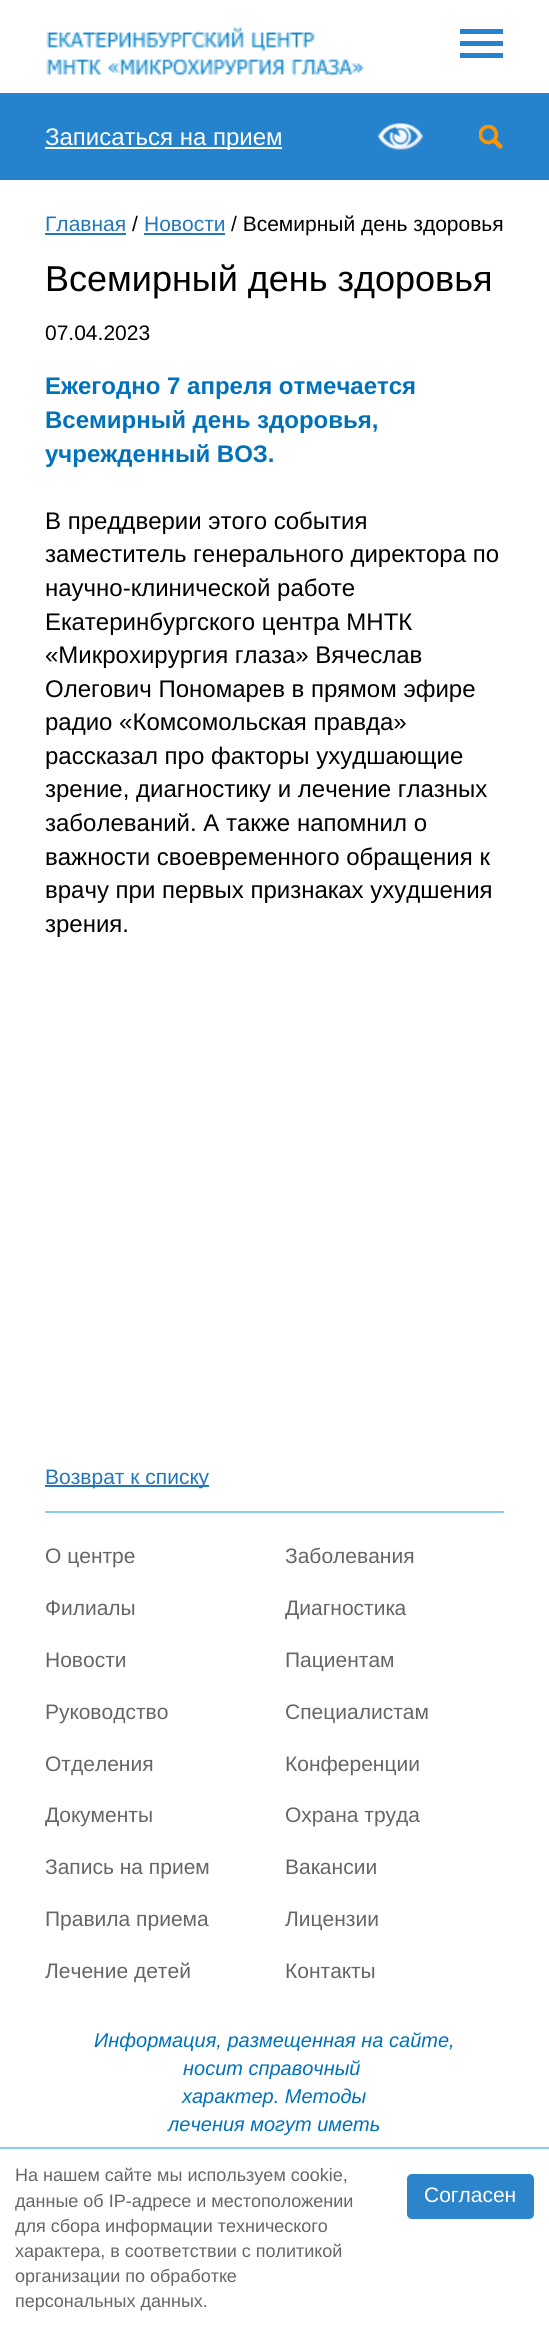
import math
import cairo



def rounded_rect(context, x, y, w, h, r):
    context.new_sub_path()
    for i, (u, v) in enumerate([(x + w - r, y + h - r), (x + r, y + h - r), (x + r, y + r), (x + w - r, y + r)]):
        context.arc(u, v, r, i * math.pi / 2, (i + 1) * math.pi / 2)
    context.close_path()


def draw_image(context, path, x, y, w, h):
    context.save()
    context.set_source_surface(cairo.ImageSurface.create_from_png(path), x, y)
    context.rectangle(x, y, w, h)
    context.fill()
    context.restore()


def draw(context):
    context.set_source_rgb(1, 1, 1)
    context.paint()
    context.set_source_rgb(37 / 255, 131 / 255, 206 / 255)
    context.rectangle(0, 93, 549, 87)
    context.fill()
    draw_image(context, "images/1.png", 46, 26, 318, 51)
    context.new_path()
    context.move_to(503, 29)
    context.line_to(503, 34)
    context.line_to(460, 34)
    context.line_to(460, 29)
    context.close_path()
    context.move_to(460, 58)
    context.line_to(503, 58)
    context.line_to(503, 53)
    context.line_to(460, 53)
    context.close_path()
    context.move_to(460, 46)
    context.line_to(503, 46)
    context.line_to(503, 41)
    context.line_to(460, 41)
    context.close_path()
    context.fill()
    context.set_source_rgb(1, 1, 1)
    context.rectangle(45, 147, 237, 2)
    context.fill()
    draw_image(context, "images/2.png", 377, 122, 47, 29)
    draw_image(context, "images/3.png", 479, 125, 24, 24)
    context.set_source_rgb(34 / 255, 119 / 255, 188 / 255)
    context.rectangle(45, 233, 81, 2)
    context.fill()
    context.rectangle(144, 233, 81, 2)
    context.fill()
    context.rectangle(45, 1485, 164, 2)
    context.fill()
    context.set_source_rgb(133 / 255, 209 / 255, 231 / 255)
    context.rectangle(45, 1511, 459, 2)
    context.fill()
    context.rectangle(0, 2147, 549, 2)
    context.fill()
    context.set_source_rgb(44 / 255, 133 / 255, 203 / 255)
    rounded_rect(context, 407, 2174, 127, 45, 5)
    context.fill()
    context.select_font_face("Liberation Sans")
    context.set_font_size(24)
    context.set_source_rgb(1, 1, 1)
    context.move_to(45, 145)
    context.show_text("Записаться на прием")
    context.set_font_size(21)
    context.set_source_rgb(34 / 255, 119 / 255, 188 / 255)
    context.move_to(45, 231)
    context.show_text("Главная")
    context.set_source_rgb(0, 0, 0)
    context.move_to(132, 231)
    context.show_text("/")
    context.set_source_rgb(34 / 255, 119 / 255, 188 / 255)
    context.move_to(144, 231)
    context.show_text("Новости")
    context.set_source_rgb(0, 0, 0)
    context.move_to(231, 231)
    context.show_text("/ Всемирный день здоровья")
    context.set_font_size(36)
    context.move_to(45, 291)
    context.show_text("Всемирный день здоровья")
    context.set_font_size(21)
    context.move_to(45, 340)
    context.show_text("07.04.2023")
    context.select_font_face("Liberation Sans", cairo.FontSlant.NORMAL, cairo.FontWeight.BOLD)
    context.set_font_size(24)
    context.set_source_rgb(0, 114 / 255, 188 / 255)
    context.move_to(45, 394)
    context.show_text("Ежегодно 7 апреля отмечается")
    context.move_to(45, 428)
    context.show_text("Всемирный день здоровья,")
    context.move_to(45, 462)
    context.show_text("учрежденный ВОЗ.")
    context.select_font_face("Liberation Sans")
    context.set_source_rgb(0, 0, 0)
    context.move_to(45, 529)
    context.show_text("В преддверии этого события")
    context.move_to(45, 562)
    context.show_text("заместитель генерального директора по")
    context.move_to(45, 596)
    context.show_text("научно-клинической работе")
    context.move_to(45, 630)
    context.show_text("Екатеринбургского центра МНТК")
    context.move_to(45, 663)
    context.show_text("«Микрохирургия глаза» Вячеслав")
    context.move_to(45, 697)
    context.show_text("Олегович Пономарев в прямом эфире")
    context.move_to(45, 730)
    context.show_text("радио «Комсомольская правда»")
    context.move_to(45, 764)
    context.show_text("рассказал про факторы ухудшающие")
    context.move_to(45, 797)
    context.show_text("зрение, диагностику и лечение глазных")
    context.move_to(45, 831)
    context.show_text("заболеваний. А также напомнил о")
    context.move_to(45, 865)
    context.show_text("важности своевременного обращения к")
    context.move_to(45, 898)
    context.show_text("врачу при первых признаках ухудшения")
    context.move_to(45, 932)
    context.show_text("зрения.")
    context.set_font_size(21)
    context.set_source_rgb(34 / 255, 119 / 255, 188 / 255)
    context.move_to(45, 1484)
    context.show_text("Возврат к списку")
    context.set_source_rgb(102 / 255, 102 / 255, 102 / 255)
    context.move_to(45, 1563)
    context.show_text("О центре")
    context.move_to(285, 1563)
    context.show_text("Заболевания")
    context.move_to(45, 1615)
    context.show_text("Филиалы")
    context.move_to(285, 1615)
    context.show_text("Диагностика")
    context.move_to(45, 1667)
    context.show_text("Новости")
    context.move_to(285, 1667)
    context.show_text("Пациентам")
    context.move_to(45, 1719)
    context.show_text("Руководство")
    context.move_to(285, 1719)
    context.show_text("Специалистам")
    context.move_to(45, 1771)
    context.show_text("Отделения")
    context.move_to(285, 1771)
    context.show_text("Конференции")
    context.move_to(45, 1822)
    context.show_text("Документы")
    context.move_to(285, 1822)
    context.show_text("Охрана труда")
    context.move_to(45, 1874)
    context.show_text("Запись на прием")
    context.move_to(285, 1874)
    context.show_text("Вакансии")
    context.move_to(45, 1926)
    context.show_text("Правила приема")
    context.move_to(285, 1926)
    context.show_text("Лицензии")
    context.move_to(45, 1978)
    context.show_text("Лечение детей")
    context.move_to(285, 1978)
    context.show_text("Контакты")
    context.select_font_face("Liberation Sans", cairo.FontSlant.ITALIC)
    context.set_font_size(20)
    context.set_source_rgb(0, 114 / 255, 188 / 255)
    context.move_to(94, 2047)
    context.show_text("Информация, размещенная на сайте,")
    context.move_to(183, 2075)
    context.show_text("носит справочный")
    context.move_to(182, 2103)
    context.show_text("характер. Методы")
    context.move_to(168, 2131)
    context.show_text("лечения могут иметь")
    context.select_font_face("Liberation Sans")
    context.set_font_size(18)
    context.set_source_rgb(102 / 255, 102 / 255, 102 / 255)
    context.move_to(15, 2181)
    context.show_text("На нашем сайте мы используем cookie,")
    context.move_to(15, 2207)
    context.show_text("данные об IP-адресе и местоположении")
    context.move_to(15, 2232)
    context.show_text("для сбора информации технического")
    context.move_to(15, 2257)
    context.show_text("характера, в соответствии с политикой")
    context.move_to(15, 2282)
    context.show_text("организации по обработке")
    context.move_to(15, 2307)
    context.show_text("персональных данных.")
    context.set_font_size(21)
    context.set_source_rgb(1, 1, 1)
    context.move_to(424, 2202)
    context.show_text("Согласен")


surface = cairo.ImageSurface(cairo.Format.RGB24, 549, 2329)
context = cairo.Context(surface)
options = cairo.FontOptions()
options.set_hint_metrics(cairo.HintMetrics.OFF)
options.set_hint_style(cairo.HintStyle.NONE)
context.set_font_options(options)
context.set_miter_limit(4)
draw(context)
surface.write_to_png("out.png")
